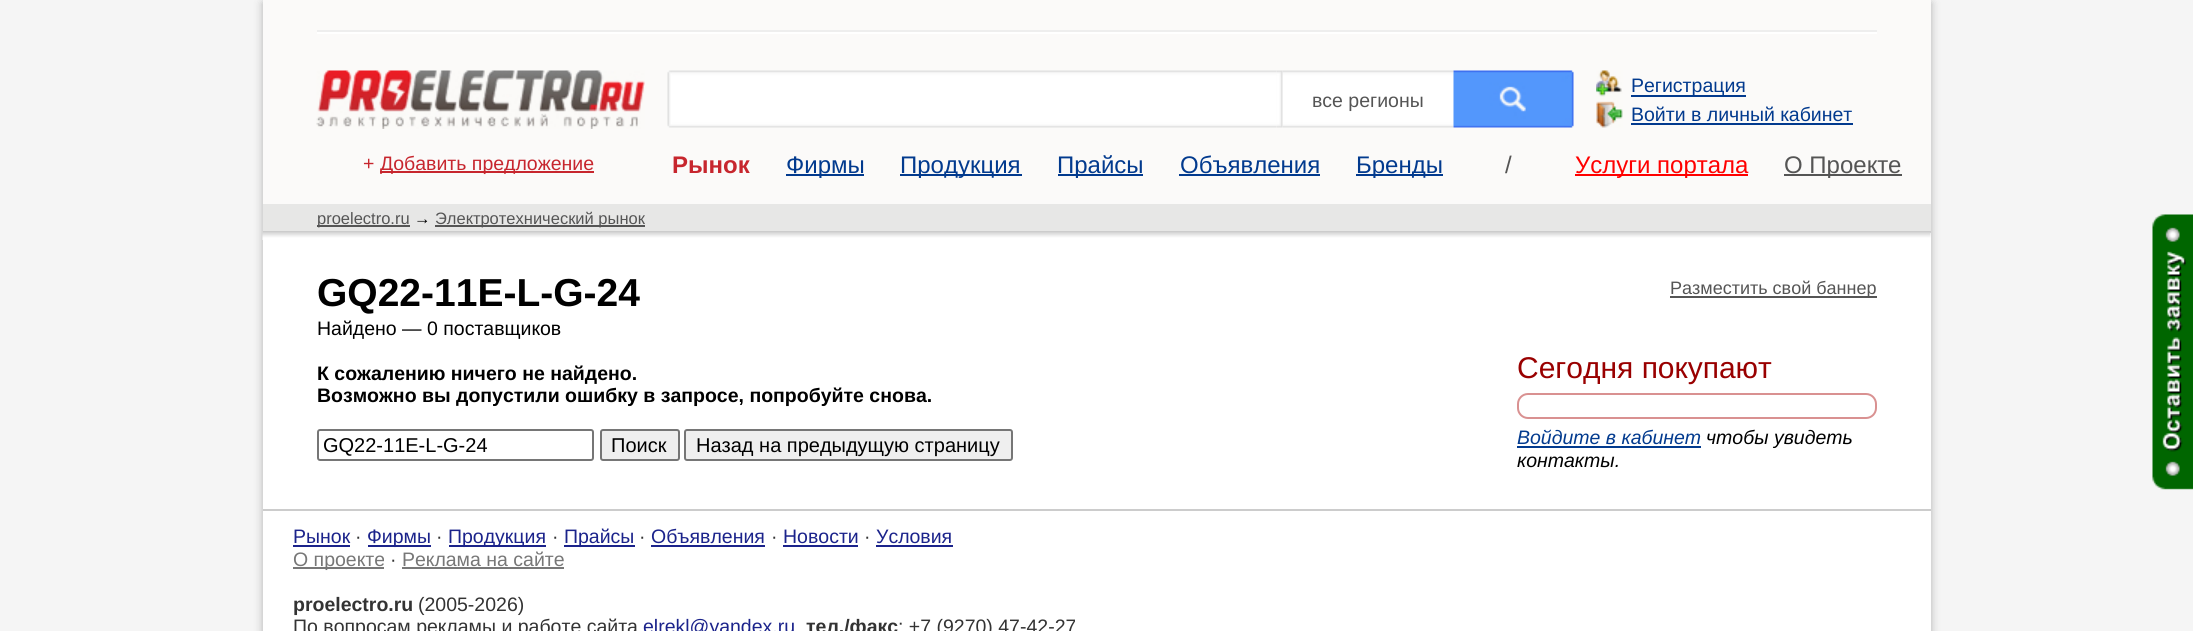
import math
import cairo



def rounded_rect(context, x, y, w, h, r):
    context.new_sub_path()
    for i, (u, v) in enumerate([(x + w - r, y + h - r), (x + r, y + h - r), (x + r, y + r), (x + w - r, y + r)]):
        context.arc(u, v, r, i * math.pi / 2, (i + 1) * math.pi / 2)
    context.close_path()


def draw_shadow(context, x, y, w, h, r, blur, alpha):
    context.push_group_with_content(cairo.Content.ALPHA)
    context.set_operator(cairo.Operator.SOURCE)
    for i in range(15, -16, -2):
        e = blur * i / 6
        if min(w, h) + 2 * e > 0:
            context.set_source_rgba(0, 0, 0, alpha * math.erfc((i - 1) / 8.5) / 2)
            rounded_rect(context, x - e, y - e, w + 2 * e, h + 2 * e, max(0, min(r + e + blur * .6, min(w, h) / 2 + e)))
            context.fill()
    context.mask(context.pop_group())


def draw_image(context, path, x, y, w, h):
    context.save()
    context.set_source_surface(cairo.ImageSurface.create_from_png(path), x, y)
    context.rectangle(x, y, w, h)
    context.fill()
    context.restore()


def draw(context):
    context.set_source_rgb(245 / 255, 245 / 255, 245 / 255)
    context.paint()
    context.set_source_rgb(48 / 255, 50 / 255, 50 / 255)
    draw_shadow(context, 263, 3, 1668, 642, 0, 4.5, 0.35)
    context.set_source_rgb(251 / 255, 250 / 255, 249 / 255)
    context.rectangle(263, 0, 1668, 204)
    context.fill()
    context.set_source_rgb(238 / 255, 238 / 255, 238 / 255)
    context.rectangle(317, 30, 1560, 2)
    context.fill()
    context.set_source_rgb(1, 1, 1)
    context.rectangle(317, 32, 1560, 2)
    context.fill()
    draw_image(context, "images/1.png", 316, 70, 329, 59)
    draw_image(context, "images/2.png", 667, 70, 5, 58)
    draw_image(context, "images/3.png", 672, 70, 605, 58)
    draw_image(context, "images/5.png", 1282, 70, 172, 58)
    draw_image(context, "images/4.png", 1276, 70, 7, 58)
    draw_image(context, "images/6.png", 1453, 70, 121, 58)
    draw_image(context, "images/7.png", 1596, 70, 27, 58)
    context.set_source_rgb(2 / 255, 58 / 255, 142 / 255)
    context.rectangle(1631, 95, 115, 2)
    context.fill()
    context.rectangle(1631, 123, 222, 2)
    context.fill()
    context.set_source_rgb(199 / 255, 38 / 255, 46 / 255)
    context.rectangle(380, 171, 214, 2)
    context.fill()
    context.set_source_rgb(2 / 255, 58 / 255, 142 / 255)
    context.rectangle(786, 174, 78, 2)
    context.fill()
    context.rectangle(900, 174, 122, 2)
    context.fill()
    context.rectangle(1058, 174, 85, 2)
    context.fill()
    context.rectangle(1179, 174, 141, 2)
    context.fill()
    context.rectangle(1356, 174, 87, 2)
    context.fill()
    context.set_source_rgb(1, 0, 0)
    context.rectangle(1575, 174, 173, 2)
    context.fill()
    context.set_source_rgb(85 / 255, 85 / 255, 85 / 255)
    context.rectangle(1784, 174, 118, 2)
    context.fill()
    context.set_source_rgb(231 / 255, 231 / 255, 230 / 255)
    context.rectangle(263, 204, 1668, 27)
    context.fill()
    context.set_source_rgb(204 / 255, 204 / 255, 204 / 255)
    context.rectangle(263, 231, 1668, 2)
    context.fill()
    context.set_source_rgb(85 / 255, 85 / 255, 85 / 255)
    context.rectangle(317, 225, 93, 2)
    context.fill()
    context.rectangle(435, 225, 210, 2)
    context.fill()
    context.set_source_rgb(1, 1, 1)
    context.rectangle(263, 233, 1668, 276)
    context.fill()
    draw_image(context, "images/8.png", 262, 232, 1669, 8)
    rounded_rect(context, 318, 430, 275, 30, 2)
    context.set_source_rgb(118 / 255, 118 / 255, 118 / 255)
    context.stroke()
    context.set_source_rgb(239 / 255, 239 / 255, 239 / 255)
    rounded_rect(context, 601, 430, 78, 30, 2)
    context.fill_preserve()
    context.set_source_rgb(118 / 255, 118 / 255, 118 / 255)
    context.stroke()
    context.set_source_rgb(239 / 255, 239 / 255, 239 / 255)
    rounded_rect(context, 685, 430, 327, 30, 2)
    context.fill_preserve()
    context.set_source_rgb(118 / 255, 118 / 255, 118 / 255)
    context.stroke()
    context.set_source_rgb(85 / 255, 85 / 255, 85 / 255)
    context.rectangle(1670, 296, 207, 2)
    context.fill()
    rounded_rect(context, 1518, 394, 358, 24, 10)
    context.set_source_rgb(217 / 255, 145 / 255, 145 / 255)
    context.stroke()
    context.set_source_rgb(2 / 255, 58 / 255, 142 / 255)
    context.rectangle(1517, 446, 184, 2)
    context.fill()
    context.set_source_rgb(1, 1, 1)
    context.rectangle(263, 511, 1668, 120)
    context.fill()
    context.set_source_rgb(204 / 255, 204 / 255, 204 / 255)
    context.rectangle(263, 509, 1668, 2)
    context.fill()
    context.set_source_rgb(27 / 255, 35 / 255, 139 / 255)
    context.rectangle(293, 545, 57, 2)
    context.fill()
    context.rectangle(368, 545, 63, 2)
    context.fill()
    context.rectangle(449, 545, 97, 2)
    context.fill()
    context.rectangle(564, 545, 71, 2)
    context.fill()
    context.rectangle(651, 545, 114, 2)
    context.fill()
    context.rectangle(783, 545, 75, 2)
    context.fill()
    context.rectangle(876, 545, 77, 2)
    context.fill()
    context.set_source_rgb(119 / 255, 119 / 255, 119 / 255)
    context.rectangle(293, 567, 91, 2)
    context.fill()
    context.rectangle(402, 567, 162, 2)
    context.fill()
    draw_image(context, "images/9.png", 2152, 214, 41, 276)
    context.select_font_face("Liberation Sans")
    context.set_font_size(19.5)
    context.set_source_rgb(85 / 255, 85 / 255, 85 / 255)
    context.move_to(1312, 107)
    context.show_text("все регионы")
    context.set_source_rgb(2 / 255, 58 / 255, 142 / 255)
    context.move_to(1631, 92)
    context.show_text("Регистрация")
    context.move_to(1631, 121)
    context.show_text("Войти в личный кабинет")
    context.set_source_rgb(199 / 255, 38 / 255, 46 / 255)
    context.move_to(363, 170)
    context.show_text("+")
    context.move_to(380, 170)
    context.show_text("Добавить предложение")
    context.select_font_face("Liberation Sans", cairo.FontSlant.NORMAL, cairo.FontWeight.BOLD)
    context.set_font_size(24)
    context.move_to(672, 173)
    context.show_text("Рынок")
    context.select_font_face("Liberation Sans")
    context.set_source_rgb(2 / 255, 58 / 255, 142 / 255)
    context.move_to(786, 173)
    context.show_text("Фирмы")
    context.move_to(900, 173)
    context.show_text("Продукция")
    context.move_to(1057, 173)
    context.show_text("Прайсы")
    context.move_to(1180, 173)
    context.show_text("Объявления")
    context.move_to(1356, 173)
    context.show_text("Бренды")
    context.set_source_rgb(85 / 255, 85 / 255, 85 / 255)
    context.move_to(1505, 173)
    context.show_text("/")
    context.set_source_rgb(1, 0, 0)
    context.move_to(1575, 173)
    context.show_text("Услуги портала")
    context.set_source_rgb(85 / 255, 85 / 255, 85 / 255)
    context.move_to(1784, 173)
    context.show_text("О Проекте")
    context.set_font_size(16.5)
    context.move_to(317, 224)
    context.show_text("proelectro.ru")
    context.set_source_rgb(0, 0, 0)
    context.move_to(414, 224)
    context.show_text("→")
    context.set_source_rgb(85 / 255, 85 / 255, 85 / 255)
    context.move_to(435, 224)
    context.show_text("Электротехнический рынок")
    context.select_font_face("Liberation Sans", cairo.FontSlant.NORMAL, cairo.FontWeight.BOLD)
    context.set_font_size(39)
    context.set_source_rgb(0, 0, 0)
    context.move_to(317, 306)
    context.show_text("GQ22-11E-L-G-24")
    context.select_font_face("Liberation Sans")
    context.set_font_size(19.5)
    context.move_to(317, 335)
    context.show_text("Найдено — 0 поставщиков")
    context.select_font_face("Liberation Sans", cairo.FontSlant.NORMAL, cairo.FontWeight.BOLD)
    context.move_to(317, 380)
    context.show_text("К сожалению ничего не найдено.")
    context.move_to(317, 402)
    context.show_text("Возможно вы допустили ошибку в запросе, попробуйте снова.")
    context.select_font_face("Liberation Sans")
    context.set_font_size(20)
    context.move_to(323, 452)
    context.show_text("GQ22-11E-L-G-24")
    context.move_to(611, 452)
    context.show_text("Поиск")
    context.move_to(696, 452)
    context.show_text("Назад на предыдущую страницу")
    context.set_font_size(18)
    context.set_source_rgb(85 / 255, 85 / 255, 85 / 255)
    context.move_to(1670, 294)
    context.show_text("Разместить свой баннер")
    context.set_font_size(30)
    context.set_source_rgb(153 / 255, 0, 0)
    context.move_to(1517, 378)
    context.show_text("Сегодня покупают")
    context.select_font_face("Liberation Sans", cairo.FontSlant.ITALIC)
    context.set_font_size(19.5)
    context.set_source_rgb(2 / 255, 58 / 255, 142 / 255)
    context.move_to(1517, 444)
    context.show_text("Войдите в кабинет")
    context.set_source_rgb(0, 0, 0)
    context.move_to(1706, 444)
    context.show_text("чтобы увидеть")
    context.move_to(1517, 467)
    context.show_text("контакты.")
    context.select_font_face("Liberation Sans")
    context.set_source_rgb(27 / 255, 35 / 255, 139 / 255)
    context.move_to(293, 543)
    context.show_text("Рынок")
    context.set_source_rgb(51 / 255, 51 / 255, 51 / 255)
    context.move_to(355, 543)
    context.show_text("·")
    context.set_source_rgb(27 / 255, 35 / 255, 139 / 255)
    context.move_to(367, 543)
    context.show_text("Фирмы")
    context.set_source_rgb(51 / 255, 51 / 255, 51 / 255)
    context.move_to(436, 543)
    context.show_text("·")
    context.set_source_rgb(27 / 255, 35 / 255, 139 / 255)
    context.move_to(448, 543)
    context.show_text("Продукция")
    context.set_source_rgb(51 / 255, 51 / 255, 51 / 255)
    context.move_to(552, 543)
    context.show_text("·")
    context.set_source_rgb(27 / 255, 35 / 255, 139 / 255)
    context.move_to(564, 543)
    context.show_text("Прайсы")
    context.set_source_rgb(51 / 255, 51 / 255, 51 / 255)
    context.move_to(639, 543)
    context.show_text("·")
    context.set_source_rgb(27 / 255, 35 / 255, 139 / 255)
    context.move_to(651, 543)
    context.show_text("Объявления")
    context.set_source_rgb(51 / 255, 51 / 255, 51 / 255)
    context.move_to(771, 543)
    context.show_text("·")
    context.set_source_rgb(27 / 255, 35 / 255, 139 / 255)
    context.move_to(783, 543)
    context.show_text("Новости")
    context.set_source_rgb(51 / 255, 51 / 255, 51 / 255)
    context.move_to(864, 543)
    context.show_text("·")
    context.set_source_rgb(27 / 255, 35 / 255, 139 / 255)
    context.move_to(876, 543)
    context.show_text("Условия")
    context.set_source_rgb(119 / 255, 119 / 255, 119 / 255)
    context.move_to(293, 566)
    context.show_text("О проекте")
    context.set_source_rgb(51 / 255, 51 / 255, 51 / 255)
    context.move_to(390, 566)
    context.show_text("·")
    context.set_source_rgb(119 / 255, 119 / 255, 119 / 255)
    context.move_to(402, 566)
    context.show_text("Реклама на сайте")
    context.select_font_face("Liberation Sans", cairo.FontSlant.NORMAL, cairo.FontWeight.BOLD)
    context.set_source_rgb(51 / 255, 51 / 255, 51 / 255)
    context.move_to(293, 611)
    context.show_text("proelectro.ru")
    context.select_font_face("Liberation Sans")
    context.move_to(418, 611)
    context.show_text("(2005-2026)")
    context.move_to(293, 633)
    context.show_text("По вопросам рекламы и работе сайта")
    context.set_source_rgb(27 / 255, 35 / 255, 139 / 255)
    context.move_to(643, 633)
    context.show_text("elrekl@yandex.ru")
    context.select_font_face("Liberation Sans", cairo.FontSlant.NORMAL, cairo.FontWeight.BOLD)
    context.set_source_rgb(51 / 255, 51 / 255, 51 / 255)
    context.move_to(806, 633)
    context.show_text("тел./факс")
    context.select_font_face("Liberation Sans")
    context.move_to(898, 633)
    context.show_text(": +7 (9270) 47-42-27")


surface = cairo.ImageSurface(cairo.Format.RGB24, 2193, 631)
context = cairo.Context(surface)
options = cairo.FontOptions()
options.set_hint_metrics(cairo.HintMetrics.OFF)
options.set_hint_style(cairo.HintStyle.NONE)
context.set_font_options(options)
context.set_miter_limit(4)
draw(context)
surface.write_to_png("out.png")
